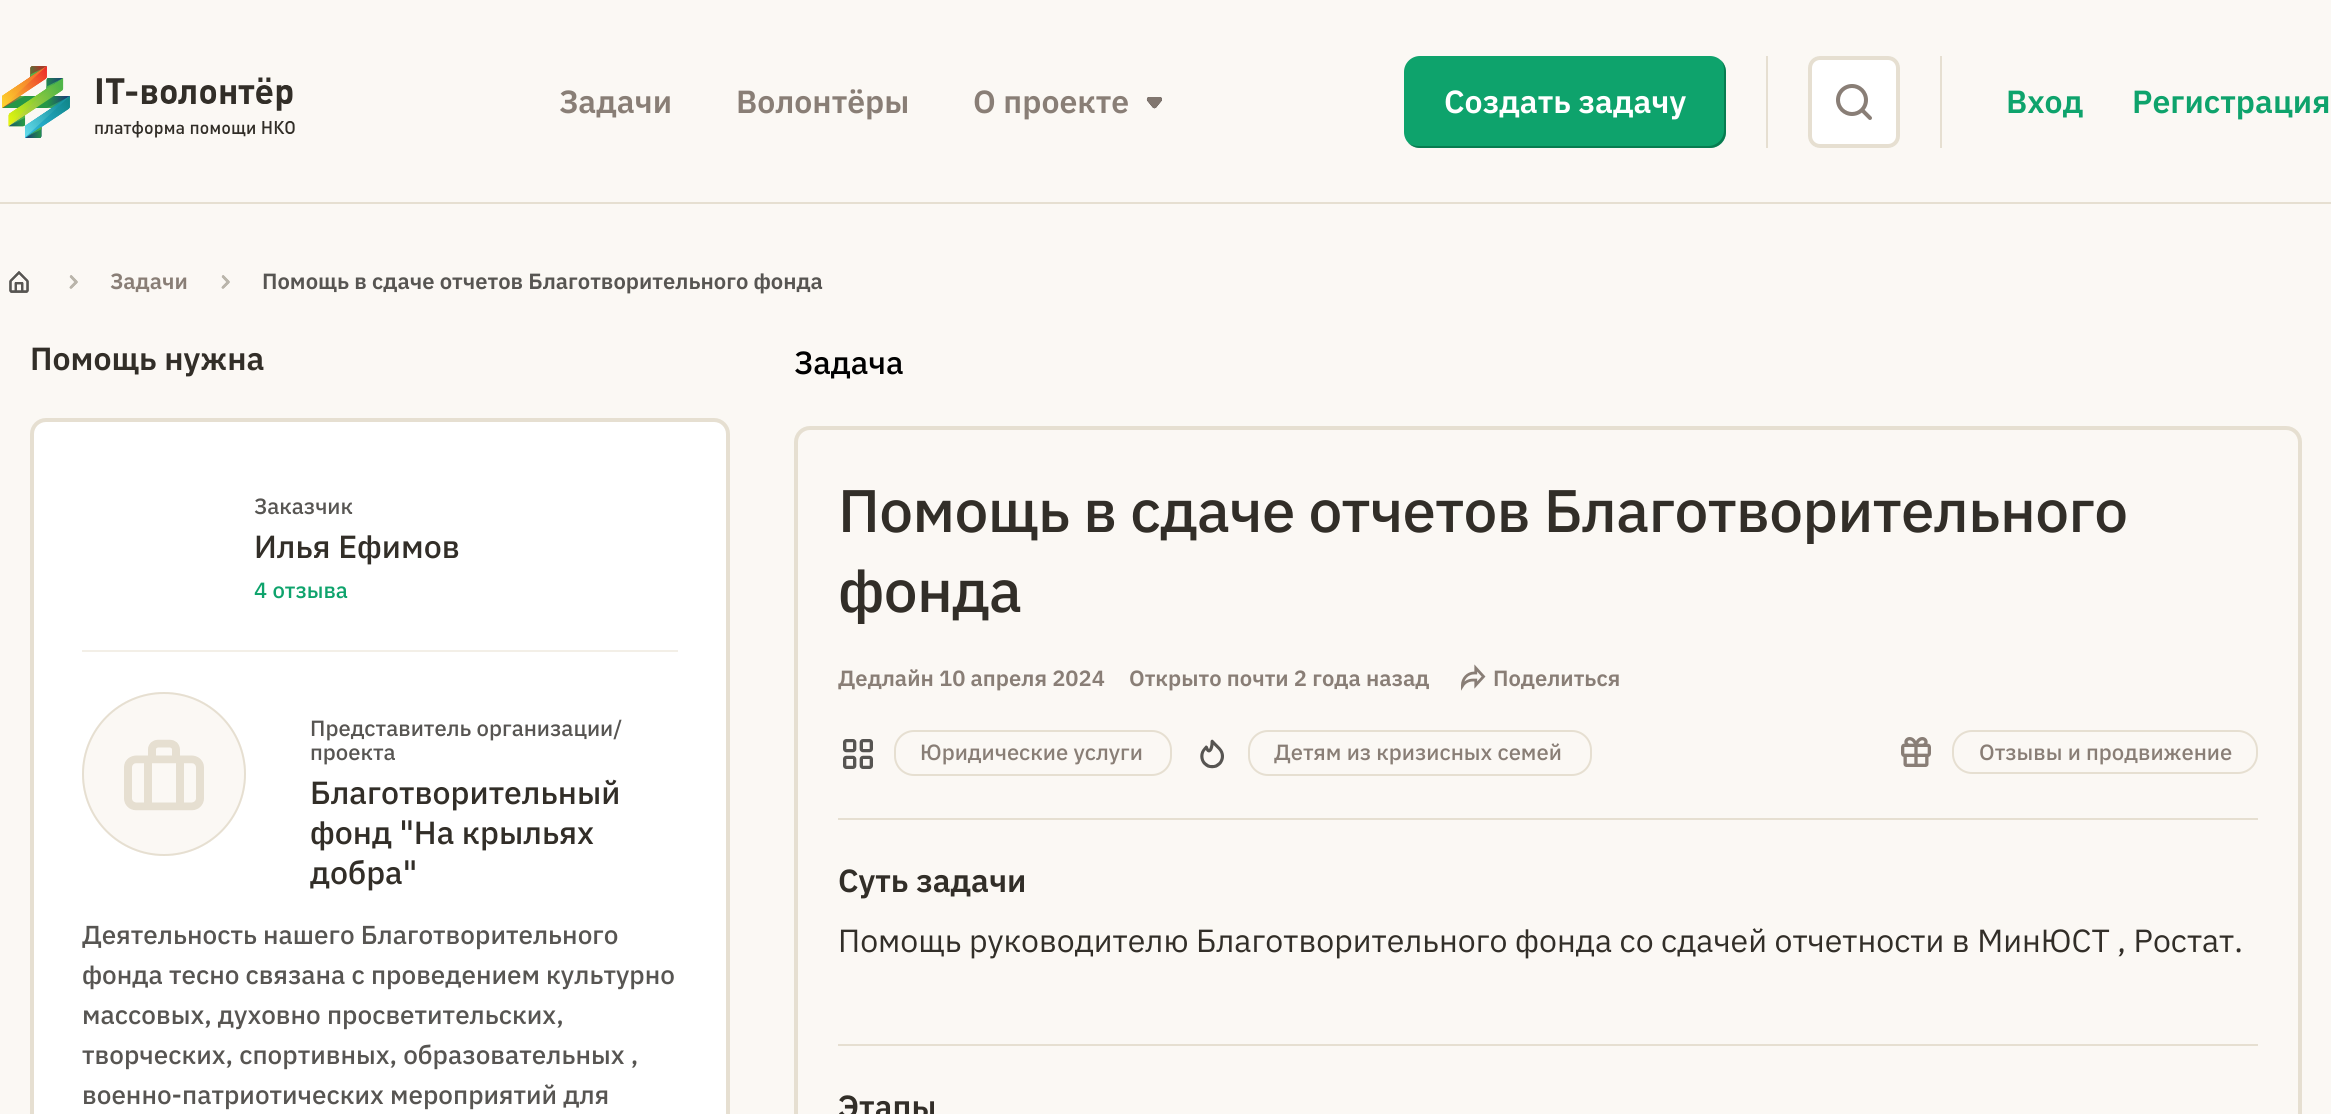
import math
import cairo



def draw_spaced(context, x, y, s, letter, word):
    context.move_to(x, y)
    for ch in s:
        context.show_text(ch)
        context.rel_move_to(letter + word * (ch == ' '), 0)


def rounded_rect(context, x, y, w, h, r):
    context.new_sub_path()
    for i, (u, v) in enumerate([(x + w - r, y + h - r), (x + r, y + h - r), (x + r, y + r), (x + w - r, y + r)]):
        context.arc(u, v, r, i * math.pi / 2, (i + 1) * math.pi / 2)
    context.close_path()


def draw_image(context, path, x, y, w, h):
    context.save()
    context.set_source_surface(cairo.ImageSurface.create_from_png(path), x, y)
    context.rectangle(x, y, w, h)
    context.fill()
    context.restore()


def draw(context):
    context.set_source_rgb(251 / 255, 248 / 255, 244 / 255)
    context.paint()
    context.set_source_rgb(230 / 255, 223 / 255, 209 / 255)
    context.rectangle(0, 202, 2331, 2)
    context.fill()
    draw_image(context, "images/1.png", 2, 66, 293, 72)
    draw_image(context, "images/2.png", 1146, 97, 16, 12)
    context.rectangle(1766, 56, 2, 92)
    context.fill()
    context.set_source_rgb(14 / 255, 163 / 255, 108 / 255)
    rounded_rect(context, 1404, 56, 322, 92, 16)
    context.fill()
    context.set_source_rgba(0, 89 / 255, 56 / 255, 0.53)
    context.new_path()
    context.move_to(1408, 143)
    context.curve_to(1411, 146, 1415, 148, 1420, 148)
    context.line_to(1710, 148)
    context.curve_to(1719, 148, 1726, 141, 1726, 132)
    context.line_to(1726, 72)
    context.curve_to(1726, 67, 1724, 63, 1721, 60)
    context.curve_to(1723, 63, 1724, 66, 1724, 70)
    context.line_to(1724, 130)
    context.curve_to(1724, 139, 1717, 146, 1708, 146)
    context.line_to(1418, 146)
    context.curve_to(1414, 146, 1411, 145, 1408, 143)
    context.close_path()
    context.fill()
    context.set_source_rgb(1, 1, 1)
    rounded_rect(context, 1808, 56, 92, 92, 12)
    context.fill()
    draw_image(context, "images/3.png", 1836, 84, 36, 36)
    rounded_rect(context, 1810, 58, 88, 88, 10)
    context.set_source_rgb(230 / 255, 223 / 255, 209 / 255)
    context.set_line_width(4)
    context.stroke()
    context.rectangle(1940, 56, 2, 92)
    context.fill()
    draw_image(context, "images/4.png", 9, 271, 20, 22)
    draw_image(context, "images/5.png", 69, 275, 9, 14)
    draw_image(context, "images/5.png", 221, 275, 9, 14)
    context.set_source_rgb(1, 1, 1)
    rounded_rect(context, 32, 420, 696, 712, 14)
    context.fill_preserve()
    context.set_source_rgb(230 / 255, 223 / 255, 209 / 255)
    context.stroke()
    context.set_source_rgb(243 / 255, 239 / 255, 231 / 255)
    context.rectangle(82, 650, 596, 2)
    context.fill()
    context.set_source_rgb(251 / 255, 248 / 255, 244 / 255)
    context.arc(164, 774, 82, 0, 2 * math.pi)
    context.fill()
    draw_image(context, "images/6.png", 124, 739, 80, 72)
    context.arc(164, 774, 81, 0, 2 * math.pi)
    context.set_source_rgb(230 / 255, 223 / 255, 209 / 255)
    context.set_line_width(2)
    context.stroke()
    rounded_rect(context, 796, 428, 1504, 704, 14)
    context.set_line_width(4)
    context.stroke()
    context.rectangle(838, 818, 1420, 2)
    context.fill()
    draw_image(context, "images/7.png", 1461, 664, 25, 27)
    draw_image(context, "images/8.png", 843, 739, 30, 30)
    rounded_rect(context, 895, 731, 276, 44, 19)
    context.set_line_width(2)
    context.stroke()
    draw_image(context, "images/9.png", 1200, 739, 24, 30)
    rounded_rect(context, 1249, 731, 342, 44, 19)
    context.stroke()
    draw_image(context, "images/10.png", 1901, 737, 30, 30)
    rounded_rect(context, 1953, 731, 304, 42, 19)
    context.stroke()
    context.rectangle(838, 1044, 1420, 2)
    context.fill()
    context.select_font_face("IBM Plex Sans SemiBold")
    context.set_font_size(32)
    context.set_source_rgb(137 / 255, 126 / 255, 118 / 255)
    context.move_to(559, 113)
    context.show_text("Задачи")
    context.move_to(736, 113)
    context.show_text("Волонтёры")
    context.move_to(973, 113)
    context.show_text("О проекте")
    context.set_source_rgb(1, 1, 1)
    context.move_to(1444, 113)
    context.show_text("Создать задачу")
    context.set_source_rgb(14 / 255, 163 / 255, 108 / 255)
    context.move_to(2006, 113)
    context.show_text("Вход")
    context.move_to(2132, 113)
    context.show_text("Регистрация")
    context.set_font_size(22)
    context.set_source_rgb(137 / 255, 126 / 255, 118 / 255)
    context.move_to(110, 289)
    context.show_text("Задачи")
    context.set_source_rgb(87 / 255, 85 / 255, 82 / 255)
    context.move_to(262, 289)
    context.show_text("Помощь в сдаче отчетов Благотворительного фонда")
    context.set_font_size(32)
    context.set_source_rgb(50 / 255, 46 / 255, 40 / 255)
    context.move_to(30, 370)
    context.show_text("Помощь нужна")
    context.select_font_face("IBM Plex Sans Medium")
    context.set_font_size(22)
    context.set_source_rgb(87 / 255, 85 / 255, 82 / 255)
    context.move_to(254, 514)
    context.show_text("Заказчик")
    context.set_font_size(32)
    context.set_source_rgb(50 / 255, 46 / 255, 40 / 255)
    context.move_to(254, 558)
    context.show_text("Илья Ефимов")
    context.set_font_size(22)
    context.set_source_rgb(14 / 255, 163 / 255, 108 / 255)
    context.move_to(254, 598)
    context.show_text("4 отзыва")
    context.set_source_rgb(87 / 255, 85 / 255, 82 / 255)
    context.move_to(310, 736)
    context.show_text("Представитель организации/")
    context.move_to(310, 760)
    context.show_text("проекта")
    context.set_font_size(32)
    context.set_source_rgb(50 / 255, 46 / 255, 40 / 255)
    context.move_to(310, 804)
    context.show_text("Благотворительный")
    context.move_to(310, 844)
    context.show_text("фонд \"На крыльях")
    context.move_to(310, 884)
    context.show_text("добра\"")
    context.set_font_size(26)
    context.set_source_rgb(87 / 255, 85 / 255, 82 / 255)
    context.move_to(82, 944)
    context.show_text("Деятельность нашего Благотворительного")
    context.move_to(82, 984)
    context.show_text("фонда тесно связана с проведением культурно")
    context.move_to(82, 1024)
    context.show_text("массовых, духовно просветительских,")
    context.move_to(82, 1064)
    context.show_text("творческих, спортивных, образовательных ,")
    context.move_to(82, 1104)
    context.show_text("военно-патриотических мероприятий для")
    context.set_font_size(32)
    context.set_source_rgb(0, 0, 0)
    context.move_to(794, 374)
    context.show_text("Задача")
    context.set_font_size(60)
    context.set_source_rgb(50 / 255, 46 / 255, 40 / 255)
    draw_spaced(context, 838, 532, "Помощь в сдаче отчетов Благотворительного", -0.6, 0)
    draw_spaced(context, 838, 612, "фонда", -0.6, 0)
    context.select_font_face("IBM Plex Sans SemiBold")
    context.set_font_size(22)
    context.set_source_rgb(137 / 255, 126 / 255, 118 / 255)
    context.move_to(838, 686)
    context.show_text("Дедлайн 10 апреля 2024")
    context.move_to(1129, 686)
    context.show_text("Открыто почти 2 года назад")
    context.move_to(1493, 686)
    context.show_text("Поделиться")
    context.select_font_face("IBM Plex Sans Medium")
    context.move_to(920, 760)
    context.show_text("Юридические услуги")
    context.move_to(1274, 760)
    context.show_text("Детям из кризисных семей")
    context.move_to(1979, 760)
    context.show_text("Отзывы и продвижение")
    context.select_font_face("IBM Plex Sans SemiBold")
    context.set_font_size(32)
    context.set_source_rgb(50 / 255, 46 / 255, 40 / 255)
    context.move_to(838, 892)
    context.show_text("Суть задачи")
    context.select_font_face("IBM Plex Sans")
    context.move_to(838, 952)
    context.show_text("Помощь руководителю Благотворительного фонда со сдачей отчетности в МинЮСТ , Ростат.")
    context.select_font_face("IBM Plex Sans SemiBold")
    context.move_to(838, 1118)
    context.show_text("Этапы")


surface = cairo.ImageSurface(cairo.Format.RGB24, 2331, 1114)
context = cairo.Context(surface)
options = cairo.FontOptions()
options.set_hint_metrics(cairo.HintMetrics.OFF)
options.set_hint_style(cairo.HintStyle.NONE)
context.set_font_options(options)
context.set_miter_limit(4)
draw(context)
surface.write_to_png("out.png")
